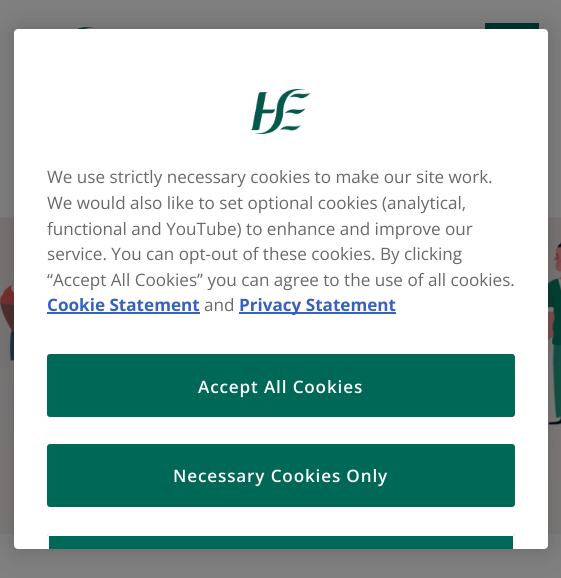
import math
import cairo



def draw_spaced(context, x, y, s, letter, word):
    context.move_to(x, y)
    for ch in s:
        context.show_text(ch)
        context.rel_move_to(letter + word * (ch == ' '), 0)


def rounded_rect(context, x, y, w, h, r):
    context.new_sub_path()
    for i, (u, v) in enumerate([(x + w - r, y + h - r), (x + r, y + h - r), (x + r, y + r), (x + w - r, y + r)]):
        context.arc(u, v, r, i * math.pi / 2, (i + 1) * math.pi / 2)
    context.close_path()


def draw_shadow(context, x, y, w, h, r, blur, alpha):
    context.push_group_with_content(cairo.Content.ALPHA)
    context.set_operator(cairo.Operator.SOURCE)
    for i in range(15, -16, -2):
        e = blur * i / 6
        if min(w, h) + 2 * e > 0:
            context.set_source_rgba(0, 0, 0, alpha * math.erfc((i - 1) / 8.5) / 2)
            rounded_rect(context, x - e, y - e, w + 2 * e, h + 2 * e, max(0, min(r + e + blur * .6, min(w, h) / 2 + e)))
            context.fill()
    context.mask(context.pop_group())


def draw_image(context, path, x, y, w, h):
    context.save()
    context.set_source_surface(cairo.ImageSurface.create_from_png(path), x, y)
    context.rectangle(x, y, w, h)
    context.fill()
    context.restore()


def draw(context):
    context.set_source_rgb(128 / 255, 128 / 255, 128 / 255)
    context.paint()
    draw_image(context, "images/1.png", 77, 27, 17, 2)
    context.set_source_rgb(0, 52 / 255, 44 / 255)
    context.rectangle(485, 23, 54, 6)
    context.fill()
    draw_image(context, "images/2.png", 0, 217, 561, 317)
    context.set_source_rgb(0, 0, 0)
    draw_shadow(context, 14, 29, 534, 520, 4, 13.5, 0.2)
    context.set_source_rgb(1, 1, 1)
    rounded_rect(context, 14, 29, 534, 520, 4)
    context.fill()
    draw_image(context, "images/3.png", 250, 88, 61, 46)
    context.set_source_rgb(56 / 255, 96 / 255, 190 / 255)
    context.rectangle(47, 312, 153, 2)
    context.fill()
    context.rectangle(239, 312, 157, 2)
    context.fill()
    context.set_source_rgb(0, 104 / 255, 87 / 255)
    rounded_rect(context, 48, 355, 466, 61, 2)
    context.fill_preserve()
    context.stroke()
    rounded_rect(context, 48, 445, 466, 61, 2)
    context.fill_preserve()
    context.stroke()
    context.new_path()
    context.move_to(50, 534)
    context.line_to(512, 534)
    context.curve_to(513.5, 534, 515, 535.5, 515, 537)
    context.line_to(515, 549)
    context.line_to(47, 549)
    context.line_to(47, 537)
    context.curve_to(47, 535.5, 48.5, 534, 50, 534)
    context.close_path()
    context.fill()
    context.set_source_rgb(1, 1, 1)
    context.new_path()
    context.move_to(50, 534)
    context.curve_to(48, 534, 47, 535, 47, 537)
    context.line_to(47, 549)
    context.line_to(49, 549)
    context.line_to(49, 537)
    context.curve_to(49, 536, 49, 536, 50, 536)
    context.line_to(512, 536)
    context.curve_to(513, 536, 513, 536, 513, 537)
    context.line_to(513, 549)
    context.line_to(515, 549)
    context.line_to(515, 537)
    context.curve_to(515, 535, 514, 534, 512, 534)
    context.close_path()
    context.fill()
    context.select_font_face("Open Sans")
    context.set_font_size(17.1)
    context.set_source_rgb(105 / 255, 105 / 255, 105 / 255)
    context.move_to(47, 183)
    context.show_text("We use strictly necessary cookies to make our site work.")
    context.move_to(47, 209)
    context.show_text("We would also like to set optional cookies (analytical,")
    context.move_to(47, 235)
    context.show_text("functional and YouTube) to enhance and improve our")
    context.move_to(47, 260)
    context.show_text("service. You can opt-out of these cookies. By clicking")
    context.move_to(47, 286)
    context.show_text("“Accept All Cookies” you can agree to the use of all cookies.")
    context.select_font_face("Open Sans", cairo.FontSlant.NORMAL, cairo.FontWeight.BOLD)
    context.set_source_rgb(56 / 255, 96 / 255, 190 / 255)
    context.move_to(47, 311)
    context.show_text("Cookie Statement")
    context.select_font_face("Open Sans")
    context.set_source_rgb(105 / 255, 105 / 255, 105 / 255)
    context.move_to(204, 311)
    context.show_text("and")
    context.select_font_face("Open Sans", cairo.FontSlant.NORMAL, cairo.FontWeight.BOLD)
    context.set_source_rgb(56 / 255, 96 / 255, 190 / 255)
    context.move_to(239, 311)
    context.show_text("Privacy Statement")
    context.select_font_face("Open Sans SemiBold")
    context.set_source_rgb(1, 1, 1)
    draw_spaced(context, 198, 393, "Accept All Cookies", 0.85, 0)
    draw_spaced(context, 173, 482, "Necessary Cookies Only", 0.85, 0)


surface = cairo.ImageSurface(cairo.Format.RGB24, 561, 578)
context = cairo.Context(surface)
options = cairo.FontOptions()
options.set_hint_metrics(cairo.HintMetrics.OFF)
options.set_hint_style(cairo.HintStyle.NONE)
context.set_font_options(options)
context.set_miter_limit(4)
draw(context)
surface.write_to_png("out.png")
